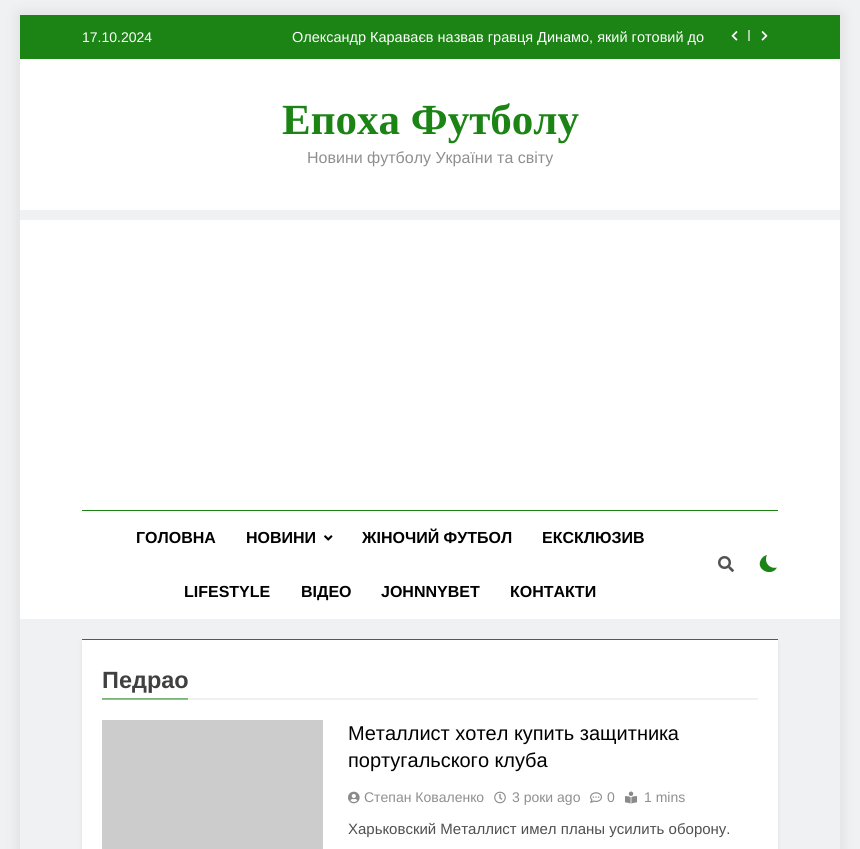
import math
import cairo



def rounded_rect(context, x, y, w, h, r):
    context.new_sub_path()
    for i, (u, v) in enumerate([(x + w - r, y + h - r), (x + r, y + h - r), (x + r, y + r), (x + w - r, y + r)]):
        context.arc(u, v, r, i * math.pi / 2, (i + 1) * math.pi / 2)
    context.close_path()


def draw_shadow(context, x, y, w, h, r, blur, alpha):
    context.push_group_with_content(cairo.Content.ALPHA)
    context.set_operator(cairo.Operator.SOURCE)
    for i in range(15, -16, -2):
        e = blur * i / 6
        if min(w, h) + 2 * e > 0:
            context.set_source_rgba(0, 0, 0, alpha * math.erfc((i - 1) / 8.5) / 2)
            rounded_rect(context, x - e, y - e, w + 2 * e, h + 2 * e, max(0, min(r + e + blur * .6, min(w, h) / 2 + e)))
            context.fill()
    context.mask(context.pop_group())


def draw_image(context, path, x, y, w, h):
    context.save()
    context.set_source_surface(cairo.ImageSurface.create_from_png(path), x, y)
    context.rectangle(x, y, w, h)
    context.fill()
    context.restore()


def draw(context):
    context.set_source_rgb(240 / 255, 241 / 255, 242 / 255)
    context.paint()
    context.save()
    context.set_fill_rule(cairo.FillRule.EVEN_ODD)
    context.new_path()
    context.move_to(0, 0)
    context.line_to(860, 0)
    context.line_to(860, 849)
    context.line_to(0, 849)
    context.close_path()
    context.move_to(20, 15)
    context.line_to(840, 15)
    context.line_to(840, 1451)
    context.line_to(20, 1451)
    context.close_path()
    context.clip()
    context.set_source_rgb(0, 0, 0)
    draw_shadow(context, 20, 15, 820, 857, 0, 7.5, 0.1)
    context.restore()
    context.set_source_rgb(27 / 255, 132 / 255, 21 / 255)
    context.rectangle(20, 15, 820, 44)
    context.fill()
    draw_image(context, "images/1.png", 731, 31, 7, 10)
    context.set_source_rgb(164 / 255, 206 / 255, 161 / 255)
    context.rectangle(748, 30, 2, 11)
    context.fill()
    draw_image(context, "images/2.png", 761, 31, 7, 10)
    context.set_source_rgb(1, 1, 1)
    context.rectangle(20, 59, 820, 151)
    context.fill()
    context.rectangle(20, 220, 820, 399)
    context.fill()
    context.set_source_rgb(27 / 255, 132 / 255, 21 / 255)
    context.rectangle(82, 510, 696, 1)
    context.fill()
    draw_image(context, "images/3.png", 324, 535, 9, 6)
    draw_image(context, "images/4.png", 718, 556, 16, 16)
    context.new_path()
    context.move_to(777, 567.5)
    context.curve_to(769.5, 569.5, 763.5, 562, 767, 555)
    context.curve_to(764.5, 555.5, 762.5, 557, 761, 559.5)
    context.curve_to(755, 569.5, 771.5, 577.5, 777, 567.5)
    context.close_path()
    context.fill()
    context.set_source_rgb(0, 0, 0)
    draw_shadow(context, 82, 642, 696, 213, 0, 2, 0.08)
    context.set_source_rgb(1, 1, 1)
    context.rectangle(82, 640, 696, 209)
    context.fill()
    context.set_source_rgb(27 / 255, 132 / 255, 21 / 255)
    context.rectangle(82, 639, 696, 1)
    context.fill()
    context.set_source_rgb(240 / 255, 240 / 255, 240 / 255)
    context.rectangle(188, 698, 570, 2)
    context.fill()
    gradient = cairo.LinearGradient(145, 695, 145, 703)
    gradient.add_color_stop_rgba(0, 27 / 255, 132 / 255, 21 / 255, 1)
    gradient.add_color_stop_rgba(1, 240 / 255, 240 / 255, 240 / 255, 1)
    context.set_source(gradient)
    context.rectangle(102, 698, 86, 2)
    context.fill()
    context.set_source_rgb(204 / 255, 204 / 255, 204 / 255)
    context.rectangle(102, 720, 221, 129)
    context.fill()
    draw_image(context, "images/5.png", 348, 791, 12, 13)
    draw_image(context, "images/6.png", 494, 791, 12, 13)
    draw_image(context, "images/7.png", 590, 792, 12, 11)
    draw_image(context, "images/8.png", 625, 791, 12, 13)
    context.select_font_face("Liberation Sans")
    context.set_font_size(14)
    context.set_source_rgb(1, 1, 1)
    context.move_to(82, 42)
    context.show_text("17.10.2024")
    context.set_font_size(14.5)
    context.move_to(292, 42)
    context.show_text("Олександр Караваєв назвав гравця Динамо, який готовий до")
    context.select_font_face("Liberation Serif", cairo.FontSlant.NORMAL, cairo.FontWeight.BOLD)
    context.set_font_size(43)
    context.set_source_rgb(27 / 255, 132 / 255, 21 / 255)
    context.move_to(282, 134)
    context.show_text("Епоха Футболу")
    context.select_font_face("Liberation Sans")
    context.set_font_size(16)
    context.set_source_rgb(143 / 255, 143 / 255, 143 / 255)
    context.move_to(307, 163)
    context.show_text("Новини футболу України та світу")
    context.select_font_face("Liberation Sans", cairo.FontSlant.NORMAL, cairo.FontWeight.BOLD)
    context.set_source_rgb(0, 0, 0)
    context.move_to(136, 543)
    context.show_text("ГОЛОВНА")
    context.move_to(246, 543)
    context.show_text("НОВИНИ")
    context.move_to(362, 543)
    context.show_text("ЖІНОЧИЙ ФУТБОЛ")
    context.move_to(542, 543)
    context.show_text("ЕКСКЛЮЗИВ")
    context.move_to(184, 597)
    context.show_text("LIFESTYLE")
    context.move_to(301, 597)
    context.show_text("ВІДЕО")
    context.move_to(381, 597)
    context.show_text("JOHNNYBET")
    context.move_to(510, 597)
    context.show_text("КОНТАКТИ")
    context.set_font_size(23.5)
    context.set_source_rgb(64 / 255, 64 / 255, 64 / 255)
    context.move_to(102, 688)
    context.show_text("Педрао")
    context.select_font_face("Liberation Sans")
    context.set_font_size(20)
    context.set_source_rgb(0, 0, 0)
    context.move_to(348, 740)
    context.show_text("Металлист хотел купить защитника")
    context.move_to(348, 767)
    context.show_text("португальского клуба")
    context.set_font_size(14)
    context.set_source_rgb(143 / 255, 143 / 255, 143 / 255)
    context.move_to(364, 802)
    context.show_text("Степан Коваленко")
    context.move_to(512, 802)
    context.show_text("3 роки ago")
    context.move_to(607, 802)
    context.show_text("0")
    context.move_to(644, 802)
    context.show_text("1 mins")
    context.set_font_size(15)
    context.set_source_rgb(80 / 255, 80 / 255, 80 / 255)
    context.move_to(348, 834)
    context.show_text("Харьковский Металлист имел планы усилить оборону.")


surface = cairo.ImageSurface(cairo.Format.RGB24, 860, 849)
context = cairo.Context(surface)
options = cairo.FontOptions()
options.set_hint_metrics(cairo.HintMetrics.OFF)
options.set_hint_style(cairo.HintStyle.NONE)
context.set_font_options(options)
context.set_miter_limit(4)
draw(context)
surface.write_to_png("out.png")
